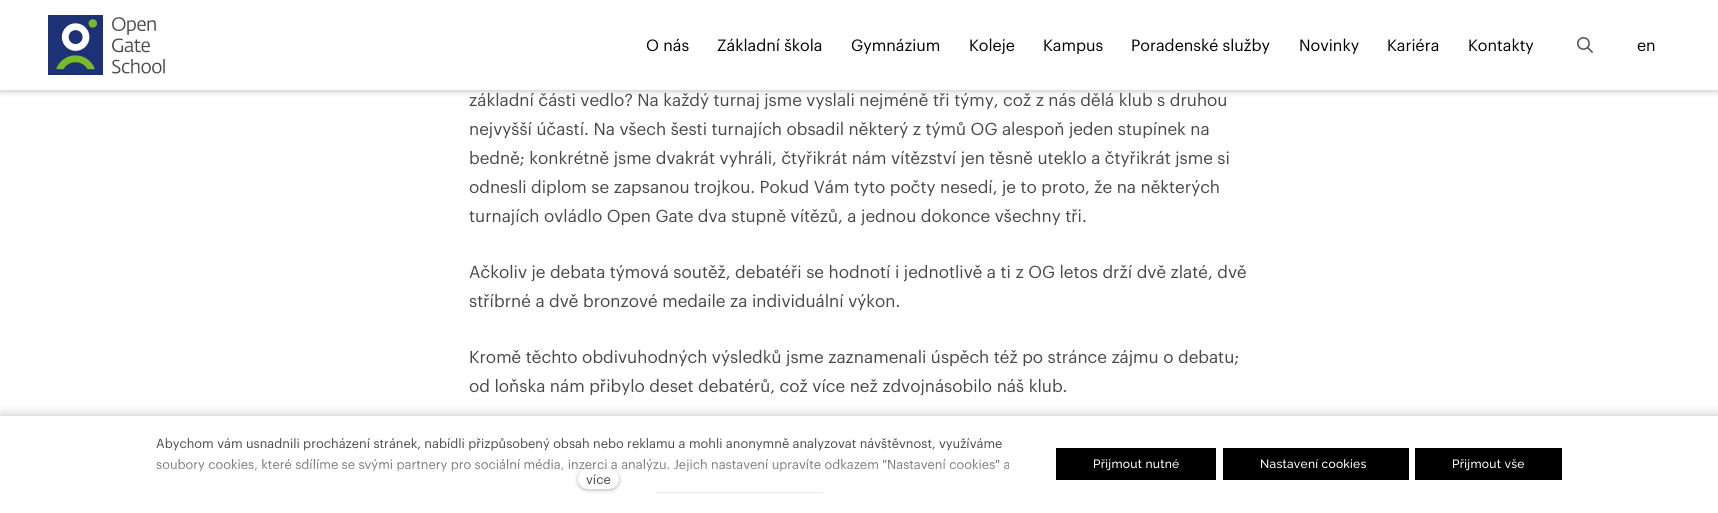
import math
import cairo



def draw_spaced(context, x, y, s, letter, word):
    context.move_to(x, y)
    for ch in s:
        context.show_text(ch)
        context.rel_move_to(letter + word * (ch == ' '), 0)


def rounded_rect(context, x, y, w, h, r):
    context.new_sub_path()
    for i, (u, v) in enumerate([(x + w - r, y + h - r), (x + r, y + h - r), (x + r, y + r), (x + w - r, y + r)]):
        context.arc(u, v, r, i * math.pi / 2, (i + 1) * math.pi / 2)
    context.close_path()


def draw_shadow(context, x, y, w, h, r, blur, alpha):
    context.push_group_with_content(cairo.Content.ALPHA)
    context.set_operator(cairo.Operator.SOURCE)
    for i in range(15, -16, -2):
        e = blur * i / 6
        if min(w, h) + 2 * e > 0:
            context.set_source_rgba(0, 0, 0, alpha * math.erfc((i - 1) / 8.5) / 2)
            rounded_rect(context, x - e, y - e, w + 2 * e, h + 2 * e, max(0, min(r + e + blur * .6, min(w, h) / 2 + e)))
            context.fill()
    context.mask(context.pop_group())


def draw_image(context, path, x, y, w, h):
    context.save()
    context.set_source_surface(cairo.ImageSurface.create_from_png(path), x, y)
    context.rectangle(x, y, w, h)
    context.fill()
    context.restore()


def draw(context):
    context.set_source_rgb(1, 1, 1)
    context.paint()
    context.set_source_rgb(0, 0, 0)
    draw_shadow(context, 0, 0, 1718, 90, 0, 4, 0.3)
    context.set_source_rgb(1, 1, 1)
    context.rectangle(0, 0, 1718, 90)
    context.fill()
    draw_image(context, "images/1.png", 48, 15, 117, 60)
    draw_image(context, "images/2.png", 1577, 37, 16, 16)
    context.set_source_rgb(0, 0, 0)
    draw_shadow(context, 0, 416, 1718, 97, 0, 6, 0.25)
    context.set_source_rgb(1, 1, 1)
    context.rectangle(0, 416, 1718, 97)
    context.fill()
    context.set_source_rgb(0, 39 / 255, 118 / 255)
    context.rectangle(656, 492, 167, 1)
    context.fill()
    context.set_source_rgb(0, 0, 0)
    context.rectangle(1056, 448, 160, 32)
    context.fill()
    context.rectangle(1223, 448, 186, 32)
    context.fill()
    context.rectangle(1415, 448, 147, 32)
    context.fill()
    context.select_font_face("Graphik")
    context.set_font_size(16)
    context.move_to(646, 51)
    context.show_text("O nás")
    context.move_to(717, 51)
    context.show_text("Základní škola")
    context.move_to(851, 51)
    context.show_text("Gymnázium")
    context.move_to(969, 51)
    context.show_text("Koleje")
    context.move_to(1043, 51)
    context.show_text("Kampus")
    context.move_to(1131, 51)
    context.show_text("Poradenské služby")
    context.move_to(1299, 51)
    context.show_text("Novinky")
    context.move_to(1387, 51)
    context.show_text("Kariéra")
    context.move_to(1468, 51)
    context.show_text("Kontakty")
    context.move_to(1637, 51)
    context.show_text("en")
    context.set_font_size(17)
    context.set_source_rgb(73 / 255, 73 / 255, 73 / 255)
    context.move_to(469, 106)
    context.show_text("základní části vedlo? Na každý turnaj jsme vyslali nejméně tři týmy, což z nás dělá klub s druhou")
    context.move_to(469, 135)
    context.show_text("nejvyšší účastí. Na všech šesti turnajích obsadil některý z týmů OG alespoň jeden stupínek na")
    context.move_to(469, 164)
    context.show_text("bedně; konkrétně jsme dvakrát vyhráli, čtyřikrát nám vítězství jen těsně uteklo a čtyřikrát jsme si")
    context.move_to(469, 193)
    context.show_text("odnesli diplom se zapsanou trojkou. Pokud Vám tyto počty nesedí, je to proto, že na některých")
    context.move_to(469, 222)
    context.show_text("turnajích ovládlo Open Gate dva stupně vítězů, a jednou dokonce všechny tři.")
    context.move_to(469, 278)
    context.show_text("Ačkoliv je debata týmová soutěž, debatéři se hodnotí i jednotlivě a ti z OG letos drží dvě zlaté, dvě")
    context.move_to(469, 307)
    context.show_text("stříbrné a dvě bronzové medaile za individuální výkon.")
    context.move_to(469, 363)
    context.show_text("Kromě těchto obdivuhodných výsledků jsme zaznamenali úspěch též po stránce zájmu o debatu;")
    context.move_to(469, 392)
    context.show_text("od loňska nám přibylo deset debatérů, což více než zdvojnásobilo náš klub.")
    context.set_font_size(12.8)
    context.move_to(156, 448)
    context.show_text("Abychom vám usnadnili procházení stránek, nabídli přizpůsobený obsah nebo reklamu a mohli anonymně analyzovat návštěvnost, využíváme")
    context.move_to(156, 469)
    context.show_text("soubory cookies, které sdílíme se svými partnery pro sociální média, inzerci a analýzu. Jejich nastavení upravíte odkazem \"Nastavení cookies\" a")
    gradient = cairo.LinearGradient(598, 497, 598, 453)
    gradient.add_color_stop_rgba(0, 1, 1, 1, 1)
    gradient.add_color_stop_rgba(1, 1, 1, 1, 0)
    context.set_source(gradient)
    context.rectangle(156, 459, 854, 34)
    context.fill()
    context.set_source_rgb(0, 0, 0)
    draw_shadow(context, 578, 470, 41, 20, 10, 2, 0.3)
    context.set_source_rgb(1, 1, 1)
    rounded_rect(context, 578, 469, 41, 20, 10)
    context.fill()
    context.set_source_rgb(73 / 255, 73 / 255, 73 / 255)
    context.move_to(586, 484)
    context.show_text("více")
    context.select_font_face("Raleway Medium")
    context.set_font_size(12)
    context.set_source_rgb(1, 1, 1)
    draw_spaced(context, 1093, 468, "Přijmout nutné", 0.25, 0)
    draw_spaced(context, 1260, 468, "Nastavení cookies", 0.25, 0)
    draw_spaced(context, 1452, 468, "Přijmout vše", 0.25, 0)


surface = cairo.ImageSurface(cairo.Format.RGB24, 1718, 513)
context = cairo.Context(surface)
options = cairo.FontOptions()
options.set_hint_metrics(cairo.HintMetrics.OFF)
options.set_hint_style(cairo.HintStyle.NONE)
context.set_font_options(options)
context.set_miter_limit(4)
draw(context)
surface.write_to_png("out.png")
